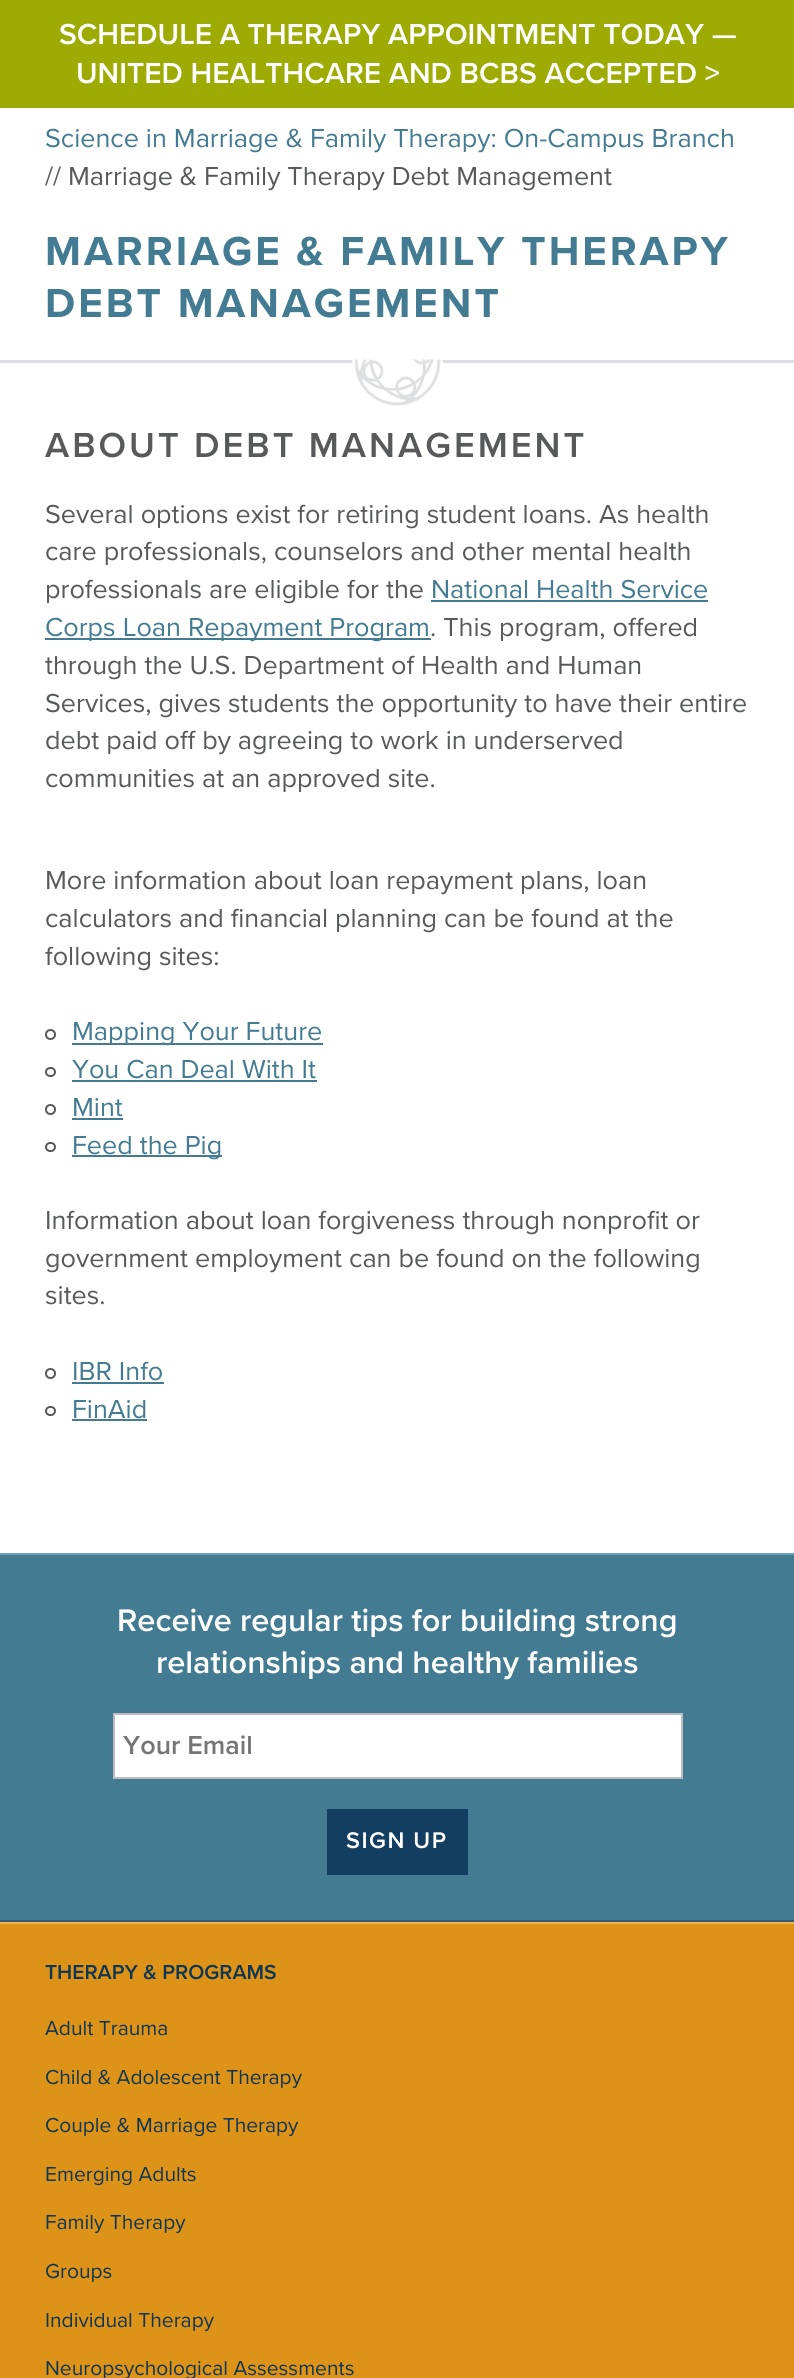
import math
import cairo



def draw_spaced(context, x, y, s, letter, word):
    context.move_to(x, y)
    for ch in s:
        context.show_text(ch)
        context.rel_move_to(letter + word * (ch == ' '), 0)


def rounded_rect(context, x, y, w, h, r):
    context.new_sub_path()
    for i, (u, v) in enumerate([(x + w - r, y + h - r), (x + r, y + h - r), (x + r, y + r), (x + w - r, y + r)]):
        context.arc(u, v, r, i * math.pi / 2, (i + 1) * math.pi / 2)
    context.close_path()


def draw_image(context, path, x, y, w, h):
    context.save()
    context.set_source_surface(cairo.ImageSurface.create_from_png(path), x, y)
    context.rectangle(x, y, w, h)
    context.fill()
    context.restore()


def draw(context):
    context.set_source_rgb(1, 1, 1)
    context.paint()
    context.set_source_rgb(158 / 255, 171 / 255, 5 / 255)
    context.rectangle(0, 0, 794, 108)
    context.fill()
    context.set_source_rgb(221 / 255, 222 / 255, 225 / 255)
    context.rectangle(0, 360, 794, 3)
    context.fill()
    draw_image(context, "images/1.png", 352, 359, 91, 47)
    context.set_source_rgb(67 / 255, 123 / 255, 146 / 255)
    context.rectangle(431, 600, 277, 2)
    context.fill()
    context.rectangle(45, 638, 386, 2)
    context.fill()
    context.arc(50.5, 1034.5, 4.5, 0, 2 * math.pi)
    context.set_source_rgb(88 / 255, 89 / 255, 91 / 255)
    context.stroke()
    context.set_source_rgb(67 / 255, 123 / 255, 146 / 255)
    context.rectangle(72, 1043, 251, 2)
    context.fill()
    rounded_rect(context, 46, 1068, 9, 8, 4)
    context.set_source_rgb(88 / 255, 89 / 255, 91 / 255)
    context.stroke()
    context.set_source_rgb(67 / 255, 123 / 255, 146 / 255)
    context.rectangle(72, 1080, 245, 2)
    context.fill()
    context.arc(50.5, 1109.5, 4.5, 0, 2 * math.pi)
    context.set_source_rgb(88 / 255, 89 / 255, 91 / 255)
    context.stroke()
    context.set_source_rgb(67 / 255, 123 / 255, 146 / 255)
    context.rectangle(72, 1118, 51, 2)
    context.fill()
    rounded_rect(context, 46, 1143, 9, 8, 4)
    context.set_source_rgb(88 / 255, 89 / 255, 91 / 255)
    context.stroke()
    context.set_source_rgb(67 / 255, 123 / 255, 146 / 255)
    context.rectangle(72, 1155, 150, 2)
    context.fill()
    context.arc(50.5, 1373.5, 4.5, 0, 2 * math.pi)
    context.set_source_rgb(88 / 255, 89 / 255, 91 / 255)
    context.stroke()
    context.set_source_rgb(67 / 255, 123 / 255, 146 / 255)
    context.rectangle(72, 1382, 92, 2)
    context.fill()
    rounded_rect(context, 46, 1407, 9, 8, 4)
    context.set_source_rgb(88 / 255, 89 / 255, 91 / 255)
    context.stroke()
    context.set_source_rgb(67 / 255, 123 / 255, 146 / 255)
    context.rectangle(72, 1419, 75, 2)
    context.fill()
    context.rectangle(0, 1555, 794, 365)
    context.fill()
    context.set_source_rgb(104 / 255, 162 / 255, 186 / 255)
    context.rectangle(0, 1553, 794, 2)
    context.fill()
    context.set_source_rgb(51 / 255, 94 / 255, 111 / 255)
    context.rectangle(0, 1920, 794, 2)
    context.fill()
    context.set_source_rgb(1, 1, 1)
    context.rectangle(114, 1714, 568, 64)
    context.fill_preserve()
    context.set_source_rgb(188 / 255, 189 / 255, 192 / 255)
    context.stroke()
    context.set_source_rgb(19 / 255, 62 / 255, 97 / 255)
    context.rectangle(327, 1809, 141, 66)
    context.fill()
    context.set_source_rgb(221 / 255, 147 / 255, 23 / 255)
    context.rectangle(0, 1924, 794, 454)
    context.fill()
    context.set_source_rgb(237 / 255, 180 / 255, 83 / 255)
    context.rectangle(0, 1922, 794, 2)
    context.fill()
    context.select_font_face("Proxima Nova SemiBold")
    context.set_font_size(30)
    context.set_source_rgb(1, 1, 1)
    context.move_to(59, 44)
    context.show_text("SCHEDULE A THERAPY APPOINTMENT TODAY —")
    context.move_to(76, 83)
    context.show_text("UNITED HEALTHCARE AND BCBS ACCEPTED >")
    context.select_font_face("Proxima Nova")
    context.set_font_size(27)
    context.set_source_rgb(67 / 255, 123 / 255, 146 / 255)
    context.move_to(45, 147)
    context.show_text("Science in Marriage & Family Therapy: On-Campus Branch")
    context.set_source_rgb(88 / 255, 89 / 255, 91 / 255)
    context.move_to(45, 185)
    context.show_text("// Marriage & Family Therapy Debt Management")
    context.select_font_face("Proxima Nova", cairo.FontSlant.NORMAL, cairo.FontWeight.BOLD)
    context.set_font_size(42)
    context.set_source_rgb(67 / 255, 123 / 255, 146 / 255)
    draw_spaced(context, 45, 265, "MARRIAGE & FAMILY THERAPY", 3, 0)
    draw_spaced(context, 45, 317, "DEBT MANAGEMENT", 3, 0)
    context.select_font_face("Proxima Nova SemiBold")
    context.set_font_size(36)
    context.set_source_rgb(88 / 255, 89 / 255, 91 / 255)
    draw_spaced(context, 45, 457, "ABOUT DEBT MANAGEMENT", 3, 0)
    context.select_font_face("Proxima Nova")
    context.set_font_size(27)
    context.move_to(45, 523)
    context.show_text("Several options exist for retiring student loans. As health")
    context.move_to(45, 560)
    context.show_text("care professionals, counselors and other mental health")
    context.move_to(45, 598)
    context.show_text("professionals are eligible for the")
    context.set_source_rgb(67 / 255, 123 / 255, 146 / 255)
    context.move_to(431, 598)
    context.show_text("National Health Service")
    context.move_to(45, 636)
    context.show_text("Corps Loan Repayment Program")
    context.set_source_rgb(88 / 255, 89 / 255, 91 / 255)
    context.move_to(430, 636)
    context.show_text(". This program, offered")
    context.move_to(45, 674)
    context.show_text("through the U.S. Department of Health and Human")
    context.move_to(45, 712)
    context.show_text("Services, gives students the opportunity to have their entire")
    context.move_to(45, 749)
    context.show_text("debt paid off by agreeing to work in underserved")
    context.move_to(45, 787)
    context.show_text("communities at an approved site.")
    context.move_to(45, 889)
    context.show_text("More information about loan repayment plans, loan")
    context.move_to(45, 927)
    context.show_text("calculators and financial planning can be found at the")
    context.move_to(45, 965)
    context.show_text("following sites:")
    context.set_source_rgb(67 / 255, 123 / 255, 146 / 255)
    context.move_to(72, 1040)
    context.show_text("Mapping Your Future")
    context.move_to(72, 1078)
    context.show_text("You Can Deal With It")
    context.move_to(72, 1116)
    context.show_text("Mint")
    context.move_to(72, 1154)
    context.show_text("Feed the Pig")
    context.set_source_rgb(88 / 255, 89 / 255, 91 / 255)
    context.move_to(45, 1229)
    context.show_text("Information about loan forgiveness through nonprofit or")
    context.move_to(45, 1267)
    context.show_text("government employment can be found on the following")
    context.move_to(45, 1304)
    context.show_text("sites.")
    context.set_source_rgb(67 / 255, 123 / 255, 146 / 255)
    context.move_to(72, 1380)
    context.show_text("IBR Info")
    context.move_to(72, 1418)
    context.show_text("FinAid")
    context.select_font_face("Proxima Nova SemiBold")
    context.set_font_size(32.4)
    context.set_source_rgb(1, 1, 1)
    context.move_to(117, 1631)
    context.show_text("Receive regular tips for building strong")
    context.move_to(156, 1673)
    context.show_text("relationships and healthy families")
    context.set_font_size(27)
    context.set_source_rgb(117 / 255, 117 / 255, 117 / 255)
    context.move_to(123, 1754)
    context.show_text("Your Email")
    context.set_font_size(23.5)
    context.set_source_rgb(1, 1, 1)
    draw_spaced(context, 346, 1848, "SIGN UP", 1.5, 0)
    context.set_font_size(21)
    context.set_source_rgb(16 / 255, 54 / 255, 84 / 255)
    context.move_to(45, 1979)
    context.show_text("THERAPY & PROGRAMS")
    context.select_font_face("Proxima Nova")
    context.move_to(45, 2035)
    context.show_text("Adult Trauma")
    context.move_to(45, 2084)
    context.show_text("Child & Adolescent Therapy")
    context.move_to(45, 2132)
    context.show_text("Couple & Marriage Therapy")
    context.move_to(45, 2181)
    context.show_text("Emerging Adults")
    context.move_to(45, 2229)
    context.show_text("Family Therapy")
    context.move_to(45, 2278)
    context.show_text("Groups")
    context.move_to(45, 2327)
    context.show_text("Individual Therapy")
    context.move_to(45, 2375)
    context.show_text("Neuropsychological Assessments")


surface = cairo.ImageSurface(cairo.Format.RGB24, 794, 2378)
context = cairo.Context(surface)
options = cairo.FontOptions()
options.set_hint_metrics(cairo.HintMetrics.OFF)
options.set_hint_style(cairo.HintStyle.NONE)
context.set_font_options(options)
context.set_miter_limit(4)
draw(context)
surface.write_to_png("out.png")
